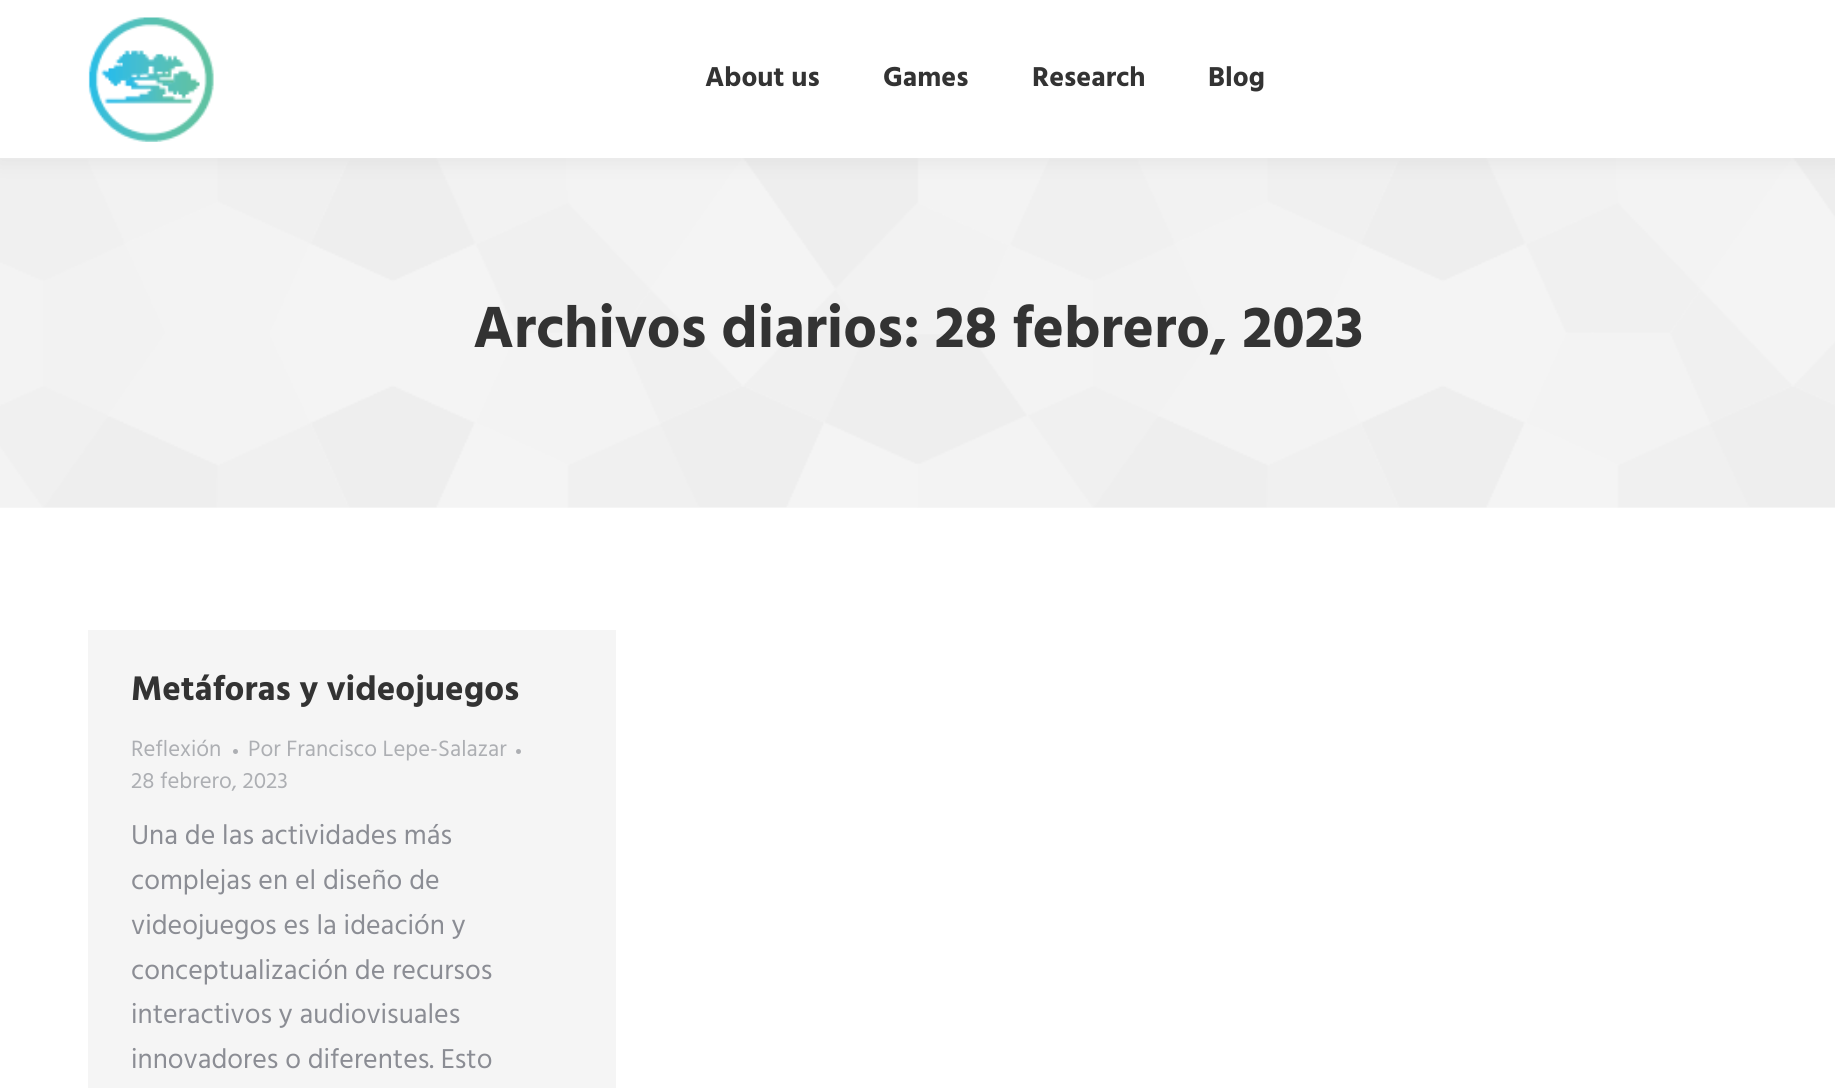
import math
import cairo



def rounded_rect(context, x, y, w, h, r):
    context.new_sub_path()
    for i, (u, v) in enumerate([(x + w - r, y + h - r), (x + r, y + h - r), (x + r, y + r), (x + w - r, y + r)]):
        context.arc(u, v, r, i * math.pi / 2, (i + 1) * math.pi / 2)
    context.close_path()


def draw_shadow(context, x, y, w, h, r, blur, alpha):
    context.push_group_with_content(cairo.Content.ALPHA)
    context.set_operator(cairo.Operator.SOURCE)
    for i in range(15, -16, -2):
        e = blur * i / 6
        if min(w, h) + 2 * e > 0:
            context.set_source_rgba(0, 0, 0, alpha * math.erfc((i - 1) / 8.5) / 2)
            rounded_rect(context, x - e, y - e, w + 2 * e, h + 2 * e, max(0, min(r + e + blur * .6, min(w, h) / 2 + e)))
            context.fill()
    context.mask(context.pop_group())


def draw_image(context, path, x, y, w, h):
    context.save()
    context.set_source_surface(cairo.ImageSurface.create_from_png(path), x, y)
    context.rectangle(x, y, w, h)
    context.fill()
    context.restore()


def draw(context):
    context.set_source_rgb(1, 1, 1)
    context.paint()
    context.set_source_rgb(251 / 255, 251 / 255, 251 / 255)
    context.rectangle(0, 158, 1835, 350)
    context.fill()
    draw_image(context, "images/2.png", 0, 158, 1835, 350)
    context.set_source_rgb(0, 0, 0)
    draw_shadow(context, -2, -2, 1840, 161, 0, 13, 0.07)
    context.set_source_rgb(1, 1, 1)
    context.rectangle(0, 0, 1835, 158)
    context.fill()
    draw_image(context, "images/1.png", 88, 17, 126, 125)
    context.set_source_rgb(245 / 255, 245 / 255, 245 / 255)
    context.rectangle(88, 630, 528, 458)
    context.fill()
    context.set_source_rgb(173 / 255, 175 / 255, 179 / 255)
    context.arc(235.5, 751.5, 2.5, 0, 2 * math.pi)
    context.fill()
    context.arc(518.5, 751.5, 2.5, 0, 2 * math.pi)
    context.fill()
    context.select_font_face("Hind", cairo.FontSlant.NORMAL, cairo.FontWeight.BOLD)
    context.set_font_size(28)
    context.set_source_rgb(51 / 255, 51 / 255, 51 / 255)
    context.move_to(705, 86)
    context.show_text("About us")
    context.move_to(883, 86)
    context.show_text("Games")
    context.move_to(1032, 86)
    context.show_text("Research")
    context.move_to(1208, 86)
    context.show_text("Blog")
    context.set_font_size(59.5)
    context.move_to(473, 347)
    context.show_text("Archivos diarios: 28 febrero, 2023")
    context.set_font_size(35)
    context.move_to(131, 700)
    context.show_text("Metáforas y videojuegos")
    context.select_font_face("Hind")
    context.set_font_size(22.75)
    context.set_source_rgb(173 / 255, 175 / 255, 179 / 255)
    context.move_to(131, 756)
    context.show_text("Reflexión")
    context.move_to(248, 756)
    context.show_text("Por Francisco Lepe-Salazar")
    context.move_to(131, 788)
    context.show_text("28 febrero, 2023")
    context.set_font_size(28)
    context.set_source_rgb(139 / 255, 141 / 255, 148 / 255)
    context.move_to(131, 844)
    context.show_text("Una de las actividades más")
    context.move_to(131, 889)
    context.show_text("complejas en el diseño de")
    context.move_to(131, 934)
    context.show_text("videojuegos es la ideación y")
    context.move_to(131, 979)
    context.show_text("conceptualización de recursos")
    context.move_to(131, 1023)
    context.show_text("interactivos y audiovisuales")
    context.move_to(131, 1068)
    context.show_text("innovadores o diferentes. Esto")


surface = cairo.ImageSurface(cairo.Format.RGB24, 1835, 1088)
context = cairo.Context(surface)
options = cairo.FontOptions()
options.set_hint_metrics(cairo.HintMetrics.OFF)
options.set_hint_style(cairo.HintStyle.NONE)
context.set_font_options(options)
context.set_miter_limit(4)
draw(context)
surface.write_to_png("out.png")
